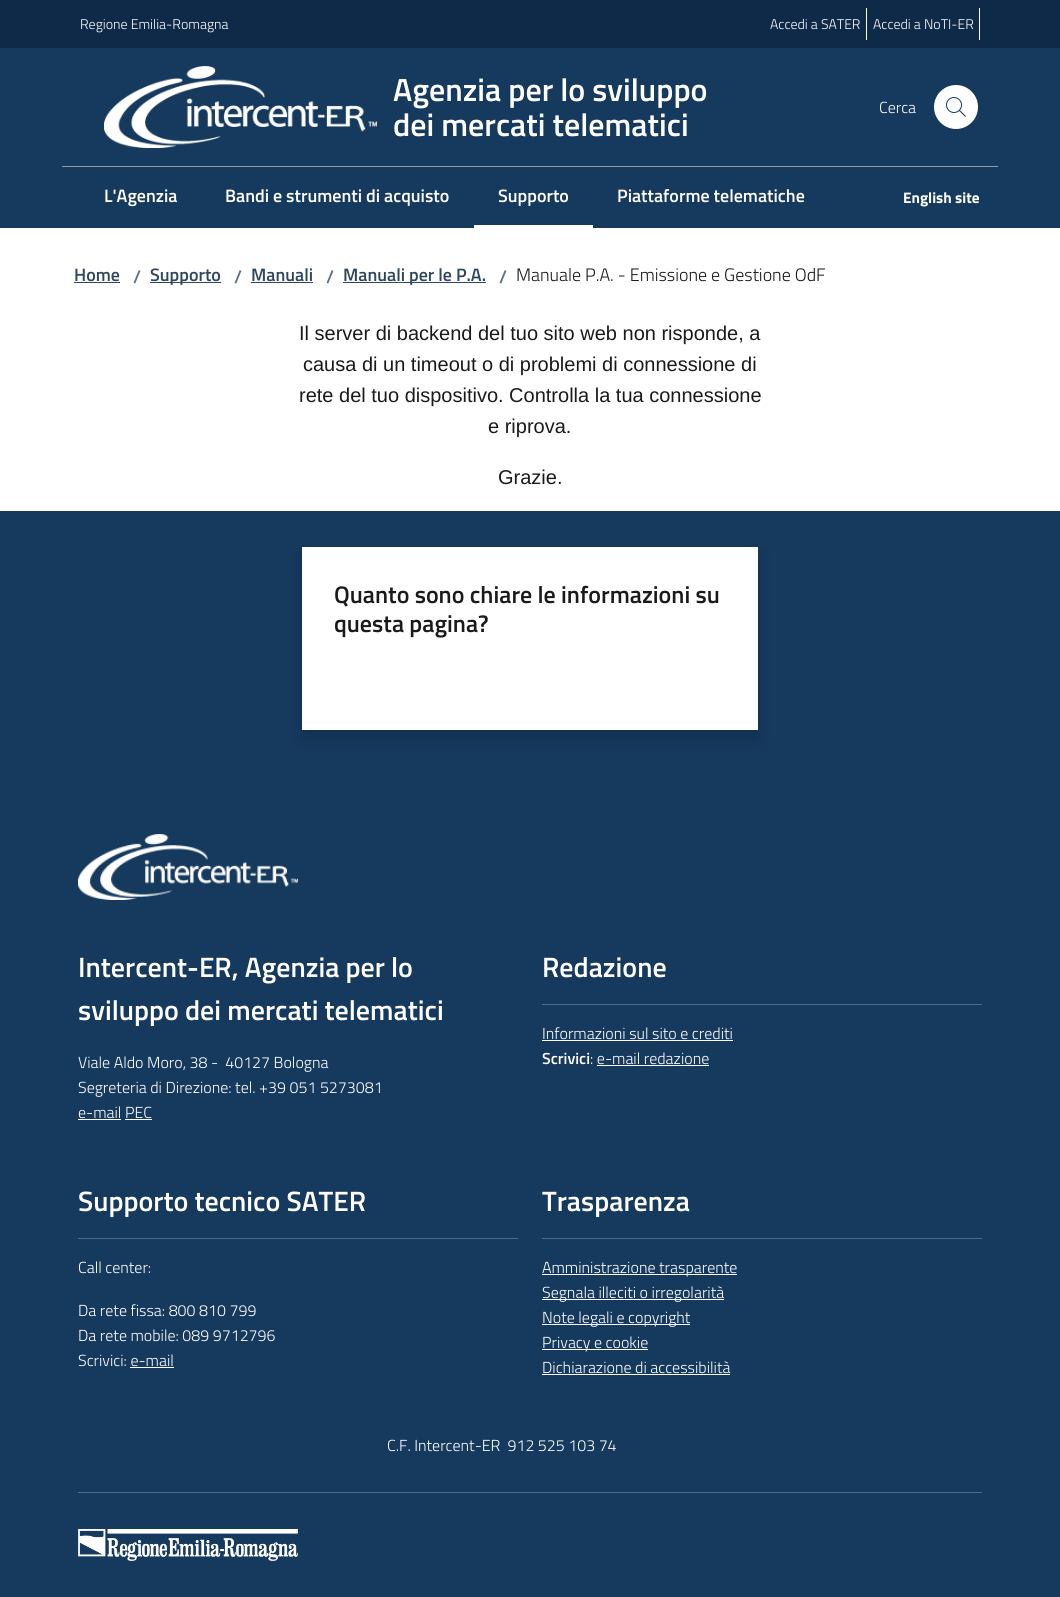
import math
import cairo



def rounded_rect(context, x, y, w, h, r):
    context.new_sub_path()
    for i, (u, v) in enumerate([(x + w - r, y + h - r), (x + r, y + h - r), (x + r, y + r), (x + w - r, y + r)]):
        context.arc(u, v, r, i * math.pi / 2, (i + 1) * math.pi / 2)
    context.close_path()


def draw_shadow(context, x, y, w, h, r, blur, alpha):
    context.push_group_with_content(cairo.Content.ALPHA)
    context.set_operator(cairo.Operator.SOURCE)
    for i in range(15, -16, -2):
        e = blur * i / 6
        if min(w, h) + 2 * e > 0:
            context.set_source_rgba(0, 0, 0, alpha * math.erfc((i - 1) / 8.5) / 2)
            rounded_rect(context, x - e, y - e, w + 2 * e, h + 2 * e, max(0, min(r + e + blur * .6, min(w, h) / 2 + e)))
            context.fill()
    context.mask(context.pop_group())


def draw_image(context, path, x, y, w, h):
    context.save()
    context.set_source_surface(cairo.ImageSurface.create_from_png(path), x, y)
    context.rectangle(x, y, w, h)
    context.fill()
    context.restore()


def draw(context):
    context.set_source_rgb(1, 1, 1)
    context.paint()
    context.set_source_rgb(15 / 255, 42 / 255, 72 / 255)
    context.rectangle(0, 0, 1060, 48)
    context.fill()
    context.set_source_rgb(1, 1, 1)
    context.rectangle(866, 8, 1, 32)
    context.fill()
    context.rectangle(979, 8, 1, 32)
    context.fill()
    context.set_source_rgb(22 / 255, 57 / 255, 94 / 255)
    context.rectangle(0, 48, 1060, 180)
    context.fill()
    draw_image(context, "images/1.png", 104, 66, 273, 82)
    context.set_source_rgb(1, 1, 1)
    context.arc(956, 107, 23, 0, 2 * math.pi)
    context.fill_preserve()
    context.set_source_rgb(22 / 255, 57 / 255, 94 / 255)
    context.stroke()
    draw_image(context, "images/2.png", 946, 97, 20, 20)
    context.set_source_rgb(139 / 255, 156 / 255, 175 / 255)
    context.rectangle(62, 166, 936, 1)
    context.fill()
    context.set_source_rgb(1, 1, 1)
    context.rectangle(474, 225, 119, 3)
    context.fill()
    context.set_source_rgb(48 / 255, 71 / 255, 95 / 255)
    context.rectangle(74, 282, 46, 1)
    context.fill()
    context.rectangle(150, 282, 71, 1)
    context.fill()
    context.rectangle(251, 282, 62, 1)
    context.fill()
    context.rectangle(343, 282, 143, 1)
    context.fill()
    context.set_source_rgb(22 / 255, 57 / 255, 94 / 255)
    context.rectangle(0, 511, 1060, 1086)
    context.fill()
    context.set_source_rgb(0, 0, 0)
    draw_shadow(context, 302, 556, 456, 183, 0, 9, 0.15)
    context.set_source_rgb(1, 1, 1)
    context.rectangle(302, 547, 456, 183)
    context.fill()
    draw_image(context, "images/3.png", 78, 834, 220, 66)
    context.rectangle(78, 1119, 43, 1)
    context.fill()
    context.rectangle(125, 1119, 27, 1)
    context.fill()
    context.set_source_rgb(80 / 255, 107 / 255, 134 / 255)
    context.rectangle(542, 1004, 440, 1)
    context.fill()
    context.set_source_rgb(1, 1, 1)
    context.rectangle(542, 1040, 191, 1)
    context.fill()
    context.rectangle(597, 1065, 112, 1)
    context.fill()
    context.set_source_rgb(80 / 255, 107 / 255, 134 / 255)
    context.rectangle(78, 1238, 440, 1)
    context.fill()
    context.set_source_rgb(1, 1, 1)
    context.rectangle(130, 1367, 44, 1)
    context.fill()
    context.set_source_rgb(80 / 255, 107 / 255, 134 / 255)
    context.rectangle(542, 1238, 440, 1)
    context.fill()
    context.set_source_rgb(1, 1, 1)
    context.rectangle(542, 1274, 195, 1)
    context.fill()
    context.rectangle(542, 1299, 182, 1)
    context.fill()
    context.rectangle(542, 1324, 148, 1)
    context.fill()
    context.rectangle(542, 1349, 106, 1)
    context.fill()
    context.rectangle(542, 1374, 188, 1)
    context.fill()
    context.set_source_rgb(80 / 255, 107 / 255, 134 / 255)
    context.rectangle(78, 1492, 904, 1)
    context.fill()
    draw_image(context, "images/4.png", 78, 1529, 220, 32)
    context.select_font_face("Titillium Web Light")
    context.set_font_size(14)
    context.set_source_rgb(1, 1, 1)
    context.move_to(80, 29)
    context.show_text("Regione Emilia-Romagna")
    context.move_to(770, 29)
    context.show_text("Accedi a SATER")
    context.move_to(873, 29)
    context.show_text("Accedi a NoTI-ER")
    context.select_font_face("Titillium Web SemiBold")
    context.set_font_size(32)
    context.move_to(393, 101)
    context.show_text("Agenzia per lo sviluppo")
    context.move_to(393, 136)
    context.show_text("dei mercati telematici")
    context.select_font_face("Titillium Web Light")
    context.set_font_size(16)
    context.move_to(879, 113)
    context.show_text("Cerca")
    context.select_font_face("Titillium Web SemiBold")
    context.set_font_size(18)
    context.move_to(104, 202)
    context.show_text("L'Agenzia")
    context.move_to(225, 202)
    context.show_text("Bandi e strumenti di acquisto")
    context.move_to(498, 202)
    context.show_text("Supporto")
    context.move_to(617, 202)
    context.show_text("Piattaforme telematiche")
    context.select_font_face("Titillium Web", cairo.FontSlant.NORMAL, cairo.FontWeight.BOLD)
    context.set_font_size(15.25)
    context.move_to(903, 203)
    context.show_text("English site")
    context.select_font_face("Titillium Web SemiBold")
    context.set_font_size(18)
    context.set_source_rgb(48 / 255, 71 / 255, 95 / 255)
    context.move_to(74, 281)
    context.show_text("Home")
    context.set_source_rgb(93 / 255, 112 / 255, 131 / 255)
    context.move_to(133, 283)
    context.show_text("/")
    context.set_source_rgb(48 / 255, 71 / 255, 95 / 255)
    context.move_to(150, 281)
    context.show_text("Supporto")
    context.set_source_rgb(93 / 255, 112 / 255, 131 / 255)
    context.move_to(234, 283)
    context.show_text("/")
    context.set_source_rgb(48 / 255, 71 / 255, 95 / 255)
    context.move_to(251, 281)
    context.show_text("Manuali")
    context.set_source_rgb(93 / 255, 112 / 255, 131 / 255)
    context.move_to(326, 283)
    context.show_text("/")
    context.set_source_rgb(48 / 255, 71 / 255, 95 / 255)
    context.move_to(343, 281)
    context.show_text("Manuali per le P.A.")
    context.set_source_rgb(93 / 255, 112 / 255, 131 / 255)
    context.move_to(499, 283)
    context.show_text("/")
    context.select_font_face("Titillium Web Light")
    context.set_source_rgb(26 / 255, 26 / 255, 26 / 255)
    context.move_to(516, 281)
    context.show_text("Manuale P.A. - Emissione e Gestione OdF")
    context.select_font_face("Liberation Sans")
    context.set_font_size(20)
    context.move_to(299, 340)
    context.show_text("Il server di backend del tuo sito web non risponde, a")
    context.move_to(303, 371)
    context.show_text("causa di un timeout o di problemi di connessione di")
    context.move_to(299, 402)
    context.show_text("rete del tuo dispositivo. Controlla la tua connessione")
    context.move_to(488, 433)
    context.show_text("e riprova.")
    context.move_to(498, 484)
    context.show_text("Grazie.")
    context.select_font_face("Titillium Web SemiBold")
    context.set_font_size(24)
    context.move_to(334, 603)
    context.show_text("Quanto sono chiare le informazioni su")
    context.move_to(334, 632)
    context.show_text("questa pagina?")
    context.set_font_size(28)
    context.set_source_rgb(1, 1, 1)
    context.move_to(78, 977)
    context.show_text("Intercent-ER, Agenzia per lo")
    context.move_to(78, 1020)
    context.show_text("sviluppo dei mercati telematici")
    context.select_font_face("Titillium Web Light")
    context.set_font_size(16)
    context.move_to(78, 1068)
    context.show_text("Viale Aldo Moro, 38 -  40127 Bologna")
    context.move_to(78, 1093)
    context.show_text("Segreteria di Direzione: tel. +39 051 5273081")
    context.move_to(78, 1118)
    context.show_text("e-mail PEC")
    context.select_font_face("Titillium Web SemiBold")
    context.set_font_size(28)
    context.move_to(542, 977)
    context.show_text("Redazione")
    context.select_font_face("Titillium Web Light")
    context.set_font_size(16)
    context.move_to(542, 1039)
    context.show_text("Informazioni sul sito e crediti")
    context.select_font_face("Titillium Web SemiBold")
    context.move_to(542, 1064)
    context.show_text("Scrivici")
    context.select_font_face("Titillium Web Light")
    context.move_to(590, 1064)
    context.show_text(": e-mail redazione")
    context.select_font_face("Titillium Web SemiBold")
    context.set_font_size(28)
    context.move_to(78, 1211)
    context.show_text("Supporto tecnico SATER")
    context.select_font_face("Titillium Web Light")
    context.set_font_size(16)
    context.move_to(78, 1273)
    context.show_text("Call center:")
    context.move_to(78, 1316)
    context.show_text("Da rete fissa: 800 810 799")
    context.move_to(78, 1341)
    context.show_text("Da rete mobile: 089 9712796")
    context.move_to(78, 1366)
    context.show_text("Scrivici: e-mail")
    context.select_font_face("Titillium Web SemiBold")
    context.set_font_size(28)
    context.move_to(542, 1211)
    context.show_text("Trasparenza")
    context.select_font_face("Titillium Web Light")
    context.set_font_size(16)
    context.move_to(542, 1273)
    context.show_text("Amministrazione trasparente")
    context.move_to(542, 1298)
    context.show_text("Segnala illeciti o irregolarità")
    context.move_to(542, 1323)
    context.show_text("Note legali e copyright")
    context.move_to(542, 1348)
    context.show_text("Privacy e cookie")
    context.move_to(542, 1373)
    context.show_text("Dichiarazione di accessibilità")
    context.move_to(387, 1451)
    context.show_text("C.F. Intercent-ER  912 525 103 74")


surface = cairo.ImageSurface(cairo.Format.RGB24, 1060, 1597)
context = cairo.Context(surface)
options = cairo.FontOptions()
options.set_hint_metrics(cairo.HintMetrics.OFF)
options.set_hint_style(cairo.HintStyle.NONE)
context.set_font_options(options)
context.set_miter_limit(4)
draw(context)
surface.write_to_png("out.png")
